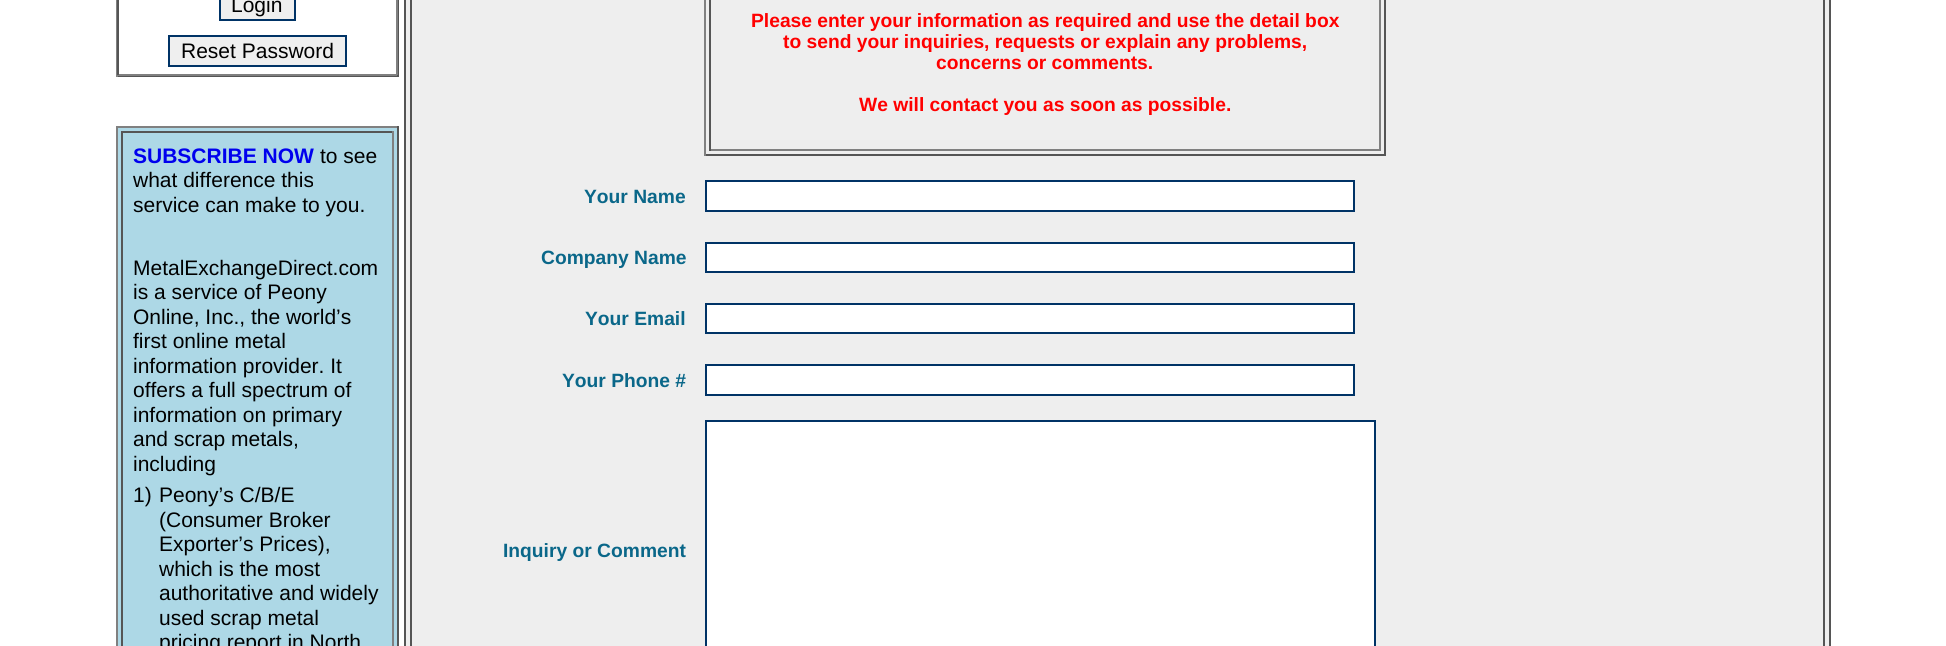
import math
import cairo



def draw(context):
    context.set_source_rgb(1, 1, 1)
    context.paint()
    context.set_source_rgb(85 / 255, 85 / 255, 85 / 255)
    context.rectangle(398, 0, 1, 77)
    context.fill()
    context.rectangle(116, 75, 283, 2)
    context.fill()
    context.set_source_rgb(128 / 255, 128 / 255, 128 / 255)
    context.rectangle(116, 0, 2, 77)
    context.fill()
    context.rectangle(396, 0, 2, 75)
    context.fill()
    context.rectangle(117, 74, 280, 2)
    context.fill()
    context.set_source_rgb(85 / 255, 85 / 255, 85 / 255)
    context.rectangle(117, 0, 2, 75)
    context.fill()
    context.set_source_rgb(239 / 255, 239 / 255, 239 / 255)
    context.rectangle(220, -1, 75, 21)
    context.fill_preserve()
    context.set_source_rgb(0, 51 / 255, 102 / 255)
    context.stroke()
    context.set_source_rgb(239 / 255, 239 / 255, 239 / 255)
    context.rectangle(169, 36, 177, 30)
    context.fill_preserve()
    context.set_source_rgb(0, 51 / 255, 102 / 255)
    context.stroke()
    context.set_source_rgb(173 / 255, 216 / 255, 230 / 255)
    context.rectangle(118, 128, 279, 518)
    context.fill()
    context.set_source_rgb(128 / 255, 128 / 255, 128 / 255)
    context.rectangle(116, 126, 283, 2)
    context.fill()
    context.set_source_rgb(85 / 255, 85 / 255, 85 / 255)
    context.rectangle(397, 126, 2, 520)
    context.fill()
    context.set_source_rgb(128 / 255, 128 / 255, 128 / 255)
    context.rectangle(116, 126, 2, 520)
    context.fill()
    context.set_source_rgb(85 / 255, 85 / 255, 85 / 255)
    context.rectangle(121, 131, 273, 2)
    context.fill()
    context.set_source_rgb(128 / 255, 128 / 255, 128 / 255)
    context.rectangle(392, 131, 2, 515)
    context.fill()
    context.set_source_rgb(85 / 255, 85 / 255, 85 / 255)
    context.rectangle(121, 131, 2, 515)
    context.fill()
    context.set_source_rgb(238 / 255, 238 / 255, 238 / 255)
    context.rectangle(405, -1, 1425, 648)
    context.fill_preserve()
    context.set_source_rgb(85 / 255, 85 / 255, 85 / 255)
    context.stroke()
    context.rectangle(411, -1, 1413, 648)
    context.stroke()
    context.rectangle(1384, 0, 2, 156)
    context.fill()
    context.rectangle(704, 154, 682, 2)
    context.fill()
    context.set_source_rgb(128 / 255, 128 / 255, 128 / 255)
    context.rectangle(704, 0, 2, 156)
    context.fill()
    context.rectangle(1379, 0, 2, 151)
    context.fill()
    context.rectangle(709, 149, 672, 2)
    context.fill()
    context.set_source_rgb(85 / 255, 85 / 255, 85 / 255)
    context.rectangle(709, 0, 2, 151)
    context.fill()
    context.set_source_rgb(1, 1, 1)
    context.rectangle(706, 181, 648, 30)
    context.fill_preserve()
    context.set_source_rgb(0, 51 / 255, 102 / 255)
    context.stroke()
    context.set_source_rgb(1, 1, 1)
    context.rectangle(706, 243, 648, 29)
    context.fill_preserve()
    context.set_source_rgb(0, 51 / 255, 102 / 255)
    context.stroke()
    context.set_source_rgb(1, 1, 1)
    context.rectangle(706, 304, 648, 29)
    context.fill_preserve()
    context.set_source_rgb(0, 51 / 255, 102 / 255)
    context.stroke()
    context.set_source_rgb(1, 1, 1)
    context.rectangle(706, 365, 648, 30)
    context.fill_preserve()
    context.set_source_rgb(0, 51 / 255, 102 / 255)
    context.stroke()
    context.set_source_rgb(1, 1, 1)
    context.rectangle(706, 421, 669, 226)
    context.fill_preserve()
    context.set_source_rgb(0, 51 / 255, 102 / 255)
    context.stroke()
    context.select_font_face("Liberation Sans")
    context.set_font_size(21)
    context.set_source_rgb(0, 0, 0)
    context.move_to(231, 12)
    context.show_text("Login")
    context.move_to(181, 58)
    context.show_text("Reset Password")
    context.select_font_face("Liberation Sans", cairo.FontSlant.NORMAL, cairo.FontWeight.BOLD)
    context.set_source_rgb(0, 0, 238 / 255)
    context.move_to(133, 163)
    context.show_text("SUBSCRIBE NOW")
    context.select_font_face("Liberation Sans")
    context.set_source_rgb(0, 0, 0)
    context.move_to(320, 163)
    context.show_text("to see")
    context.move_to(133, 187)
    context.show_text("what difference this")
    context.move_to(133, 212)
    context.show_text("service can make to you.")
    context.move_to(133, 275)
    context.show_text("MetalExchangeDirect.com")
    context.move_to(133, 299)
    context.show_text("is a service of Peony")
    context.move_to(133, 324)
    context.show_text("Online, Inc., the world’s")
    context.move_to(133, 348)
    context.show_text("first online metal")
    context.move_to(133, 373)
    context.show_text("information provider. It")
    context.move_to(133, 397)
    context.show_text("offers a full spectrum of")
    context.move_to(133, 422)
    context.show_text("information on primary")
    context.move_to(133, 446)
    context.show_text("and scrap metals,")
    context.move_to(133, 471)
    context.show_text("including")
    context.move_to(133, 502)
    context.show_text("1)")
    context.move_to(159, 502)
    context.show_text("Peony’s C/B/E")
    context.move_to(159, 527)
    context.show_text("(Consumer Broker")
    context.move_to(159, 551)
    context.show_text("Exporter’s Prices),")
    context.move_to(159, 576)
    context.show_text("which is the most")
    context.move_to(159, 600)
    context.show_text("authoritative and widely")
    context.move_to(159, 625)
    context.show_text("used scrap metal")
    context.move_to(159, 649)
    context.show_text("pricing report in North")
    context.select_font_face("Liberation Sans", cairo.FontSlant.NORMAL, cairo.FontWeight.BOLD)
    context.set_font_size(19.25)
    context.set_source_rgb(1, 0, 0)
    context.move_to(751, 27)
    context.show_text("Please enter your information as required and use the detail box")
    context.move_to(783, 48)
    context.show_text("to send your inquiries, requests or explain any problems,")
    context.move_to(936, 69)
    context.show_text("concerns or comments.")
    context.move_to(859, 111)
    context.show_text("We will contact you as soon as possible.")
    context.set_source_rgb(10 / 255, 103 / 255, 137 / 255)
    context.move_to(584, 203)
    context.show_text("Your Name")
    context.move_to(541, 264)
    context.show_text("Company Name")
    context.move_to(585, 325)
    context.show_text("Your Email")
    context.move_to(562, 387)
    context.show_text("Your Phone #")
    context.move_to(503, 557)
    context.show_text("Inquiry or Comment")


surface = cairo.ImageSurface(cairo.Format.RGB24, 1946, 646)
context = cairo.Context(surface)
options = cairo.FontOptions()
options.set_hint_metrics(cairo.HintMetrics.OFF)
options.set_hint_style(cairo.HintStyle.NONE)
context.set_font_options(options)
context.set_miter_limit(4)
draw(context)
surface.write_to_png("out.png")
